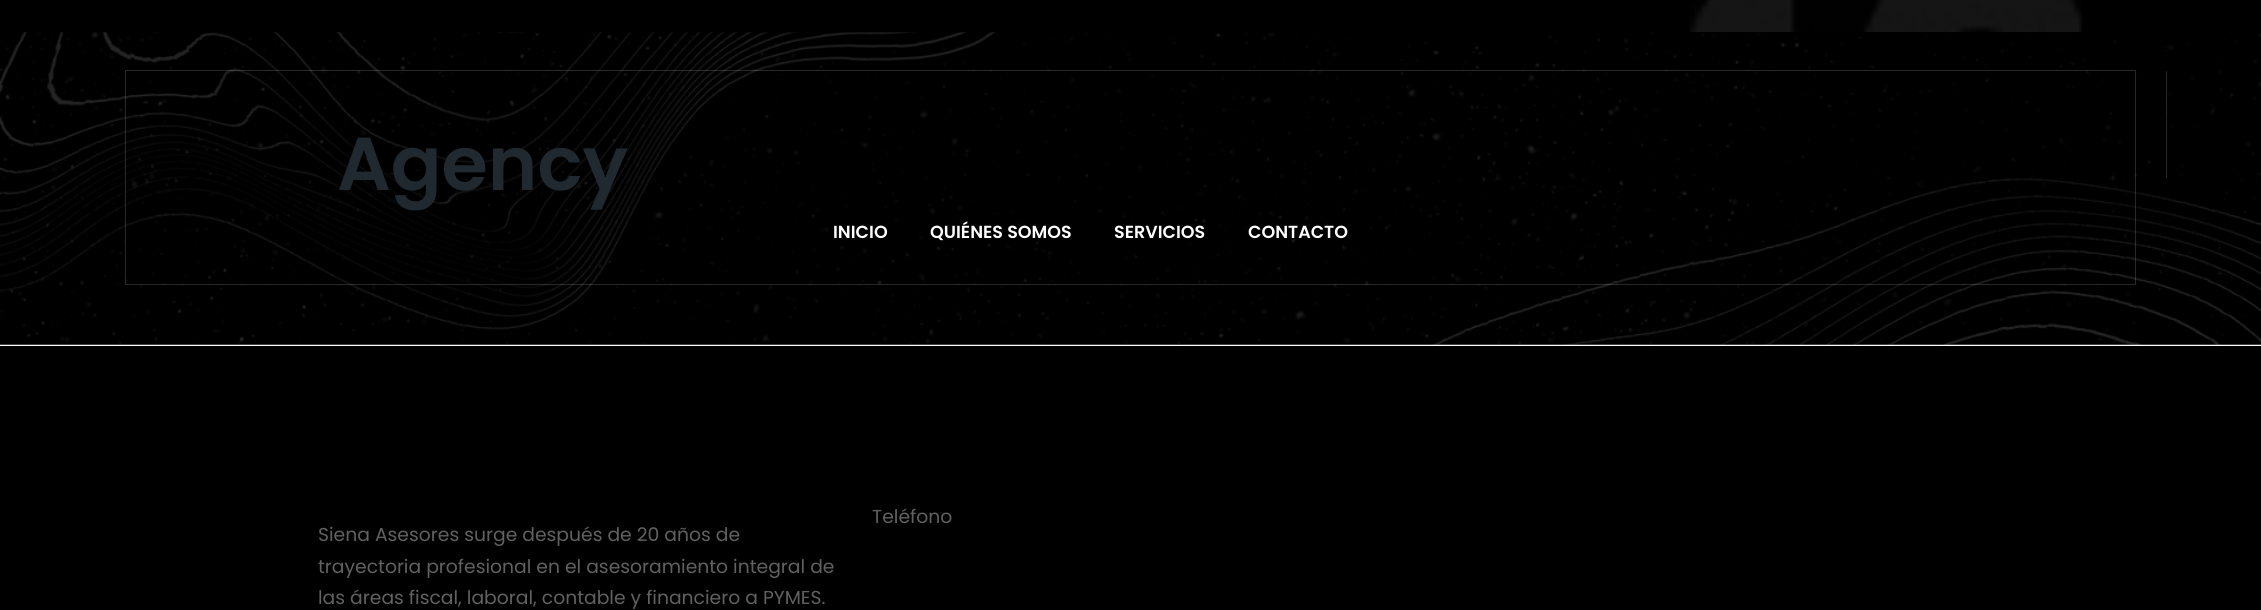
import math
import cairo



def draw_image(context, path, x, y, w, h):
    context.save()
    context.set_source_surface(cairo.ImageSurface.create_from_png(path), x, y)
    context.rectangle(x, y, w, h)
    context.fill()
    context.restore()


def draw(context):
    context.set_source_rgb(1, 1, 1)
    context.paint()
    context.set_source_rgb(0, 0, 0)
    context.rectangle(0, 0, 2261, 33)
    context.fill()
    draw_image(context, "images/1.png", 1689, 0, 393, 33)
    draw_image(context, "images/2.png", 0, 32, 2261, 313)
    context.rectangle(125.5, 70.5, 2010, 214)
    context.set_source_rgba(1, 1, 1, 0.16)
    context.set_line_width(1)
    context.stroke()
    context.set_source_rgb(41 / 255, 41 / 255, 41 / 255)
    context.rectangle(2166, 71, 1, 107)
    context.fill()
    context.set_source_rgb(0, 0, 0)
    context.rectangle(0, 346, 2261, 264)
    context.fill()
    context.select_font_face("Poppins SemiBold")
    context.set_font_size(75)
    context.set_source_rgb(32 / 255, 41 / 255, 47 / 255)
    context.move_to(337, 190)
    context.show_text("Agency")
    context.set_font_size(17.5)
    context.set_source_rgb(1, 1, 1)
    context.move_to(833, 238)
    context.show_text("INICIO")
    context.move_to(930, 238)
    context.show_text("QUIÉNES SOMOS")
    context.move_to(1114, 238)
    context.show_text("SERVICIOS")
    context.move_to(1248, 238)
    context.show_text("CONTACTO")
    context.select_font_face("Poppins")
    context.set_font_size(18.75)
    context.set_source_rgb(97 / 255, 97 / 255, 97 / 255)
    context.move_to(872, 523)
    context.show_text("Teléfono")
    context.move_to(318, 541)
    context.show_text("Siena Asesores surge después de 20 años de")
    context.move_to(318, 573)
    context.show_text("trayectoria profesional en el asesoramiento integral de")
    context.move_to(318, 604)
    context.show_text("las áreas fiscal, laboral, contable y financiero a PYMES.")


surface = cairo.ImageSurface(cairo.Format.RGB24, 2261, 610)
context = cairo.Context(surface)
options = cairo.FontOptions()
options.set_hint_metrics(cairo.HintMetrics.OFF)
options.set_hint_style(cairo.HintStyle.NONE)
context.set_font_options(options)
context.set_miter_limit(4)
draw(context)
surface.write_to_png("out.png")
